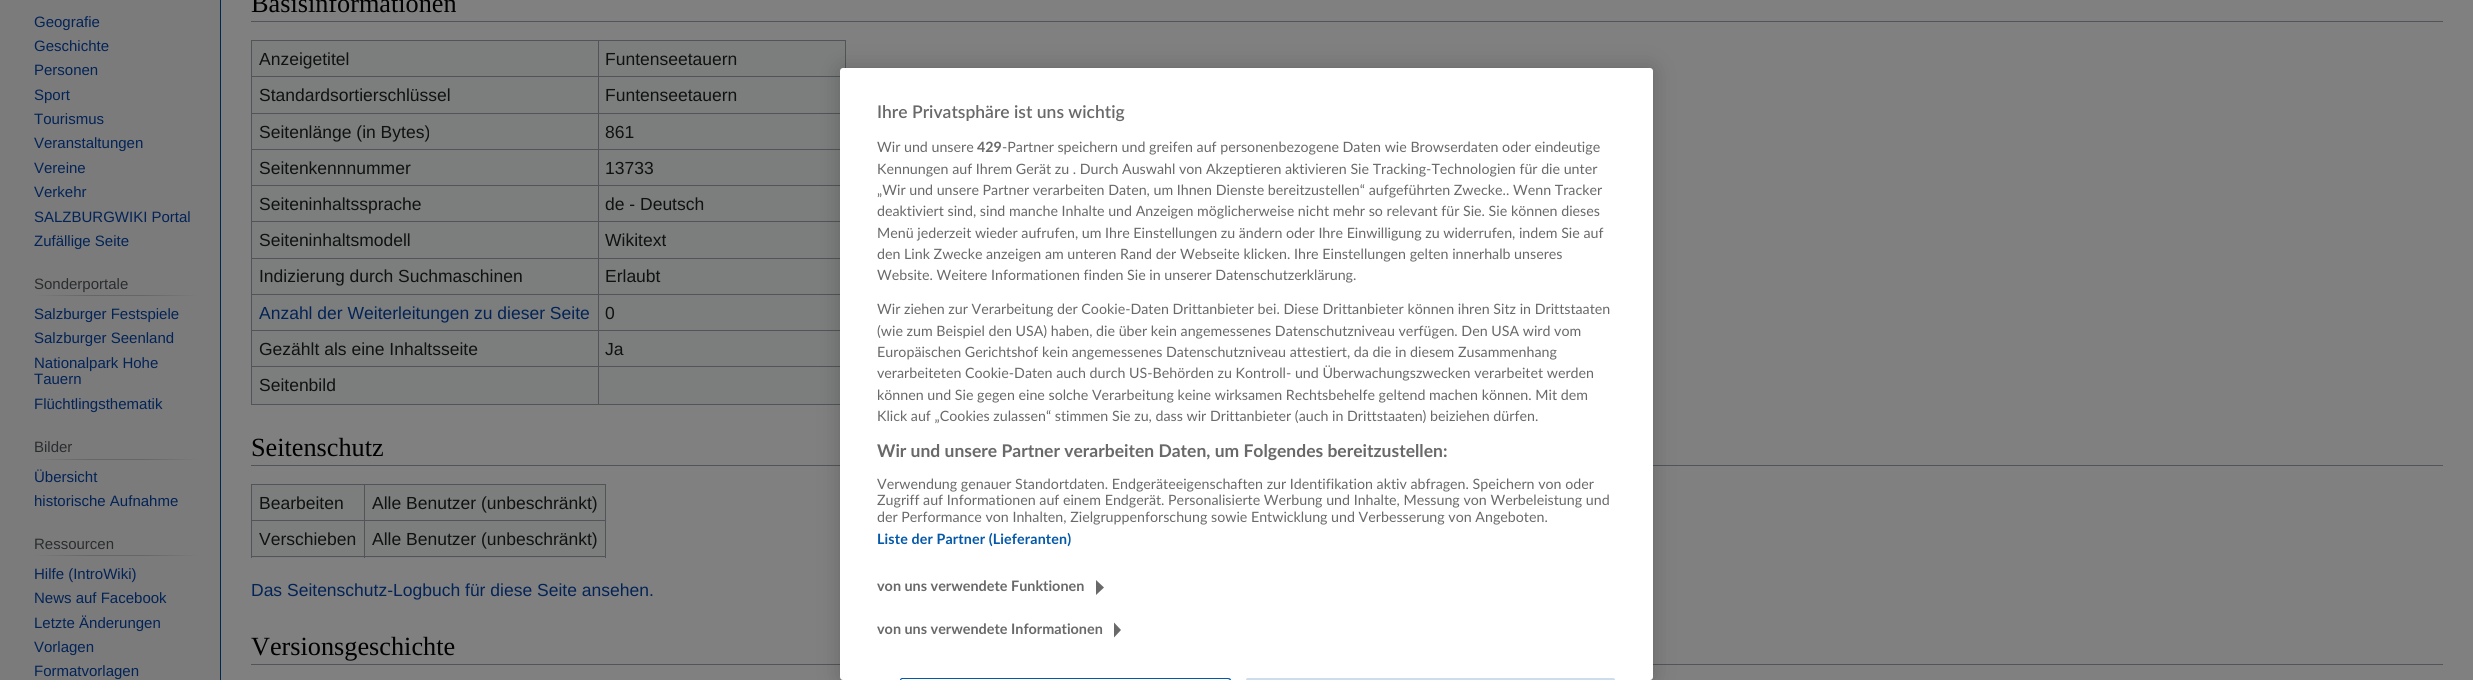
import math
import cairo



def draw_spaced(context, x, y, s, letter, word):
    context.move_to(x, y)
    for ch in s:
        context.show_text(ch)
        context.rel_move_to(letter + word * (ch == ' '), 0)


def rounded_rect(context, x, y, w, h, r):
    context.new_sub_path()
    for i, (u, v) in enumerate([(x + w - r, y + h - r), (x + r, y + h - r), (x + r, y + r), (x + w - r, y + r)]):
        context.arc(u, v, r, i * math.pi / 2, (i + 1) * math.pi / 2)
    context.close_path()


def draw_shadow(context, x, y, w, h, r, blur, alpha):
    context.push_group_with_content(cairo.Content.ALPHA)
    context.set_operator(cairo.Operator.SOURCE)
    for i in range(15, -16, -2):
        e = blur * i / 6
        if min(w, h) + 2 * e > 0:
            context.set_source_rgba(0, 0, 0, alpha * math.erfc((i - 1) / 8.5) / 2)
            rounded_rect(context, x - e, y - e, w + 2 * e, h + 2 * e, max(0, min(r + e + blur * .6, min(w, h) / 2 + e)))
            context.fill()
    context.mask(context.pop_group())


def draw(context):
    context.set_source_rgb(123 / 255, 123 / 255, 123 / 255)
    context.paint()
    gradient = cairo.LinearGradient(34, 296, 198, 296)
    gradient.add_color_stop_rgba(0, 123 / 255, 123 / 255, 123 / 255, 1)
    gradient.add_color_stop_rgba(0.33, 100 / 255, 102 / 255, 105 / 255, 1)
    gradient.add_color_stop_rgba(0.66, 100 / 255, 102 / 255, 105 / 255, 1)
    gradient.add_color_stop_rgba(1, 123 / 255, 123 / 255, 123 / 255, 1)
    context.set_source(gradient)
    context.rectangle(34, 295, 164, 1)
    context.fill()
    gradient = cairo.LinearGradient(34, 459, 198, 459)
    gradient.add_color_stop_rgba(0, 123 / 255, 123 / 255, 123 / 255, 1)
    gradient.add_color_stop_rgba(0.33, 100 / 255, 102 / 255, 105 / 255, 1)
    gradient.add_color_stop_rgba(0.66, 100 / 255, 102 / 255, 105 / 255, 1)
    gradient.add_color_stop_rgba(1, 123 / 255, 123 / 255, 123 / 255, 1)
    context.set_source(gradient)
    context.rectangle(34, 459, 164, 1)
    context.fill()
    gradient = cairo.LinearGradient(34, 556, 198, 556)
    gradient.add_color_stop_rgba(0, 123 / 255, 123 / 255, 123 / 255, 1)
    gradient.add_color_stop_rgba(0.33, 100 / 255, 102 / 255, 105 / 255, 1)
    gradient.add_color_stop_rgba(0.66, 100 / 255, 102 / 255, 105 / 255, 1)
    gradient.add_color_stop_rgba(1, 123 / 255, 123 / 255, 123 / 255, 1)
    context.set_source(gradient)
    context.rectangle(34, 555, 164, 1)
    context.fill()
    context.set_source_rgb(128 / 255, 128 / 255, 128 / 255)
    context.rectangle(220.5, -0.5, 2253, 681)
    context.fill_preserve()
    context.set_source_rgb(0, 40 / 255, 80 / 255)
    context.set_line_width(1)
    context.stroke()
    context.set_source_rgb(81 / 255, 85 / 255, 89 / 255)
    context.rectangle(251, 21, 2192, 1)
    context.fill()
    context.set_source_rgb(124 / 255, 125 / 255, 125 / 255)
    context.rectangle(252, 41, 593, 363)
    context.fill()
    context.set_source_rgb(81 / 255, 85 / 255, 89 / 255)
    context.rectangle(251, 40, 595, 1)
    context.fill()
    context.rectangle(845, 40, 1, 28)
    context.fill()
    context.rectangle(251, 404, 595, 1)
    context.fill()
    context.rectangle(251, 40, 1, 365)
    context.fill()
    context.rectangle(598, 76, 248, 1)
    context.fill()
    context.rectangle(598, 113, 248, 1)
    context.fill()
    context.rectangle(598, 149, 248, 1)
    context.fill()
    context.rectangle(598, 185, 248, 1)
    context.fill()
    context.rectangle(598, 221, 248, 1)
    context.fill()
    context.rectangle(598, 258, 248, 1)
    context.fill()
    context.rectangle(598, 294, 248, 1)
    context.fill()
    context.rectangle(598, 330, 248, 1)
    context.fill()
    context.rectangle(598, 366, 248, 1)
    context.fill()
    context.rectangle(598, 366, 1, 39)
    context.fill()
    context.rectangle(251, 366, 348, 1)
    context.fill()
    context.rectangle(598, 330, 1, 38)
    context.fill()
    context.rectangle(251, 330, 348, 1)
    context.fill()
    context.rectangle(598, 294, 1, 37)
    context.fill()
    context.rectangle(251, 294, 348, 1)
    context.fill()
    context.rectangle(598, 258, 1, 37)
    context.fill()
    context.rectangle(251, 258, 348, 1)
    context.fill()
    context.rectangle(598, 221, 1, 38)
    context.fill()
    context.rectangle(251, 221, 348, 1)
    context.fill()
    context.rectangle(598, 185, 1, 38)
    context.fill()
    context.rectangle(251, 185, 348, 1)
    context.fill()
    context.rectangle(598, 149, 1, 37)
    context.fill()
    context.rectangle(251, 149, 348, 1)
    context.fill()
    context.rectangle(598, 113, 1, 37)
    context.fill()
    context.rectangle(251, 113, 348, 1)
    context.fill()
    context.rectangle(598, 76, 1, 38)
    context.fill()
    context.rectangle(251, 76, 348, 1)
    context.fill()
    context.rectangle(598, 40, 1, 38)
    context.fill()
    context.rectangle(251, 465, 2192, 1)
    context.fill()
    context.set_source_rgb(124 / 255, 125 / 255, 125 / 255)
    context.rectangle(252, 485, 353, 73)
    context.fill()
    context.set_source_rgb(81 / 255, 85 / 255, 89 / 255)
    context.rectangle(251, 484, 355, 1)
    context.fill()
    context.rectangle(605, 484, 1, 74)
    context.fill()
    context.rectangle(251, 556, 355, 1)
    context.fill()
    context.rectangle(251, 484, 1, 74)
    context.fill()
    context.rectangle(364, 520, 242, 1)
    context.fill()
    context.rectangle(364, 520, 1, 38)
    context.fill()
    context.rectangle(251, 520, 114, 1)
    context.fill()
    context.rectangle(364, 484, 1, 37)
    context.fill()
    context.rectangle(251, 664, 2192, 1)
    context.fill()
    context.set_source_rgb(0, 0, 0)
    draw_shadow(context, 840, 68, 813, 612, 3, 11, 0.2)
    context.set_source_rgb(1, 1, 1)
    rounded_rect(context, 840, 68, 813, 612, 3)
    context.fill()
    context.set_source_rgb(105 / 255, 105 / 255, 105 / 255)
    context.new_path()
    context.move_to(1096, 595)
    context.line_to(1096, 580)
    context.line_to(1104, 587.5)
    context.close_path()
    context.fill()
    context.new_path()
    context.move_to(1114, 637.5)
    context.line_to(1114, 622.5)
    context.line_to(1121, 630)
    context.close_path()
    context.fill()
    context.set_source_rgb(3 / 255, 88 / 255, 169 / 255)
    context.new_path()
    context.move_to(902, 678)
    context.curve_to(901, 678, 900, 679, 900, 680)
    context.line_to(901, 680)
    context.line_to(902, 679)
    context.line_to(1228, 679)
    context.line_to(1230, 680)
    context.line_to(1231, 680)
    context.curve_to(1231, 679, 1230, 678, 1228, 678)
    context.close_path()
    context.fill()
    context.set_source_rgb(204 / 255, 221 / 255, 238 / 255)
    context.new_path()
    context.move_to(1248.5, 678)
    context.line_to(1612.5, 678)
    context.curve_to(1614, 678, 1615, 679, 1615, 680.5)
    context.line_to(1615, 680)
    context.line_to(1246, 680)
    context.line_to(1246, 680.5)
    context.curve_to(1246, 679, 1247, 678, 1248.5, 678)
    context.close_path()
    context.fill()
    context.new_path()
    context.move_to(1248, 678)
    context.curve_to(1247, 678, 1246, 679, 1246, 680)
    context.line_to(1247, 680)
    context.line_to(1248, 679)
    context.line_to(1612, 679)
    context.line_to(1614, 680)
    context.line_to(1615, 680)
    context.curve_to(1615, 679, 1614, 678, 1612, 678)
    context.close_path()
    context.fill()
    context.select_font_face("Liberation Sans")
    context.set_font_size(15)
    context.set_source_rgb(3 / 255, 35 / 255, 87 / 255)
    context.move_to(34, 27)
    context.show_text("Geografie")
    context.move_to(34, 51)
    context.show_text("Geschichte")
    context.move_to(34, 75)
    context.show_text("Personen")
    context.move_to(34, 100)
    context.show_text("Sport")
    context.move_to(34, 124)
    context.show_text("Tourismus")
    context.move_to(34, 148)
    context.show_text("Veranstaltungen")
    context.move_to(34, 173)
    context.show_text("Vereine")
    context.move_to(34, 197)
    context.show_text("Verkehr")
    context.move_to(34, 222)
    context.show_text("SALZBURGWIKI Portal")
    context.move_to(34, 246)
    context.show_text("Zufällige Seite")
    context.set_source_rgb(42 / 255, 45 / 255, 47 / 255)
    context.move_to(34, 289)
    context.show_text("Sonderportale")
    context.set_source_rgb(3 / 255, 35 / 255, 87 / 255)
    context.move_to(34, 319)
    context.show_text("Salzburger Festspiele")
    context.move_to(34, 343)
    context.show_text("Salzburger Seenland")
    context.move_to(34, 368)
    context.show_text("Nationalpark Hohe")
    context.move_to(34, 384)
    context.show_text("Tauern")
    context.move_to(34, 409)
    context.show_text("Flüchtlingsthematik")
    context.set_source_rgb(42 / 255, 45 / 255, 47 / 255)
    context.move_to(34, 452)
    context.show_text("Bilder")
    context.set_source_rgb(3 / 255, 35 / 255, 87 / 255)
    context.move_to(34, 482)
    context.show_text("Übersicht")
    context.move_to(34, 506)
    context.show_text("historische Aufnahme")
    context.set_source_rgb(42 / 255, 45 / 255, 47 / 255)
    context.move_to(34, 549)
    context.show_text("Ressourcen")
    context.set_source_rgb(3 / 255, 35 / 255, 87 / 255)
    context.move_to(34, 579)
    context.show_text("Hilfe (IntroWiki)")
    context.move_to(34, 603)
    context.show_text("News auf Facebook")
    context.move_to(34, 628)
    context.show_text("Letzte Änderungen")
    context.move_to(34, 652)
    context.show_text("Vorlagen")
    context.move_to(34, 676)
    context.show_text("Formatvorlagen")
    context.select_font_face("Liberation Serif")
    context.set_font_size(26.25)
    context.set_source_rgb(0, 0, 0)
    context.move_to(251, 12)
    context.show_text("Basisinformationen")
    context.select_font_face("Liberation Sans")
    context.set_font_size(17.5)
    context.set_source_rgb(16 / 255, 17 / 255, 17 / 255)
    context.move_to(259, 65)
    context.show_text("Anzeigetitel")
    context.move_to(605, 65)
    context.show_text("Funtenseetauern")
    context.move_to(259, 101)
    context.show_text("Standardsortierschlüssel")
    context.move_to(605, 101)
    context.show_text("Funtenseetauern")
    context.move_to(259, 138)
    context.show_text("Seitenlänge (in Bytes)")
    context.move_to(605, 138)
    context.show_text("861")
    context.move_to(259, 174)
    context.show_text("Seitenkennnummer")
    context.move_to(605, 174)
    context.show_text("13733")
    context.move_to(259, 210)
    context.show_text("Seiteninhaltssprache")
    context.move_to(605, 210)
    context.show_text("de - Deutsch")
    context.move_to(259, 246)
    context.show_text("Seiteninhaltsmodell")
    context.move_to(605, 246)
    context.show_text("Wikitext")
    context.move_to(259, 282)
    context.show_text("Indizierung durch Suchmaschinen")
    context.move_to(605, 282)
    context.show_text("Erlaubt")
    context.set_source_rgb(3 / 255, 35 / 255, 87 / 255)
    context.move_to(259, 319)
    context.show_text("Anzahl der Weiterleitungen zu dieser Seite")
    context.set_source_rgb(16 / 255, 17 / 255, 17 / 255)
    context.move_to(605, 319)
    context.show_text("0")
    context.move_to(259, 355)
    context.show_text("Gezählt als eine Inhaltsseite")
    context.move_to(605, 355)
    context.show_text("Ja")
    context.move_to(259, 391)
    context.show_text("Seitenbild")
    context.select_font_face("Liberation Serif")
    context.set_font_size(26.25)
    context.set_source_rgb(0, 0, 0)
    context.move_to(251, 456)
    context.show_text("Seitenschutz")
    context.select_font_face("Liberation Sans")
    context.set_font_size(17.5)
    context.set_source_rgb(16 / 255, 17 / 255, 17 / 255)
    context.move_to(259, 509)
    context.show_text("Bearbeiten")
    context.move_to(372, 509)
    context.show_text("Alle Benutzer (unbeschränkt)")
    context.move_to(259, 545)
    context.show_text("Verschieben")
    context.move_to(372, 545)
    context.show_text("Alle Benutzer (unbeschränkt)")
    context.set_source_rgb(3 / 255, 35 / 255, 87 / 255)
    context.move_to(251, 596)
    context.show_text("Das Seitenschutz-Logbuch für diese Seite ansehen.")
    context.select_font_face("Liberation Serif")
    context.set_font_size(26.25)
    context.set_source_rgb(0, 0, 0)
    context.move_to(251, 655)
    context.show_text("Versionsgeschichte")
    context.select_font_face("Lato SemiBold")
    context.set_font_size(17.5)
    context.set_source_rgb(105 / 255, 105 / 255, 105 / 255)
    context.move_to(877, 118)
    context.show_text("Ihre Privatsphäre ist uns wichtig")
    context.select_font_face("Lato")
    context.set_font_size(14.23)
    context.move_to(877, 152)
    context.show_text("Wir und unsere")
    context.select_font_face("Lato", cairo.FontSlant.NORMAL, cairo.FontWeight.BOLD)
    context.move_to(977, 152)
    context.show_text("429")
    context.select_font_face("Lato")
    context.move_to(1002, 152)
    context.show_text("-Partner speichern und greifen auf personenbezogene Daten wie Browserdaten oder eindeutige")
    context.move_to(877, 174)
    context.show_text("Kennungen auf Ihrem Gerät zu . Durch Auswahl von Akzeptieren aktivieren Sie Tracking-Technologien für die unter")
    context.move_to(877, 195)
    context.show_text("„Wir und unsere Partner verarbeiten Daten, um Ihnen Dienste bereitzustellen“ aufgeführten Zwecke.. Wenn Tracker")
    context.move_to(877, 216)
    context.show_text("deaktiviert sind, sind manche Inhalte und Anzeigen möglicherweise nicht mehr so relevant für Sie. Sie können dieses")
    context.move_to(877, 238)
    context.show_text("Menü jederzeit wieder aufrufen, um Ihre Einstellungen zu ändern oder Ihre Einwilligung zu widerrufen, indem Sie auf")
    context.move_to(877, 259)
    context.show_text("den Link Zwecke anzeigen am unteren Rand der Webseite klicken. Ihre Einstellungen gelten innerhalb unseres")
    context.move_to(877, 280)
    context.show_text("Website. Weitere Informationen finden Sie in unserer Datenschutzerklärung.")
    context.move_to(877, 314)
    context.show_text("Wir ziehen zur Verarbeitung der Cookie-Daten Drittanbieter bei. Diese Drittanbieter können ihren Sitz in Drittstaaten")
    context.move_to(877, 336)
    context.show_text("(wie zum Beispiel den USA) haben, die über kein angemessenes Datenschutzniveau verfügen. Den USA wird vom")
    context.move_to(877, 357)
    context.show_text("Europäischen Gerichtshof kein angemessenes Datenschutzniveau attestiert, da die in diesem Zusammenhang")
    context.move_to(877, 378)
    context.show_text("verarbeiteten Cookie-Daten auch durch US-Behörden zu Kontroll- und Überwachungszwecken verarbeitet werden")
    context.move_to(877, 400)
    context.show_text("können und Sie gegen eine solche Verarbeitung keine wirksamen Rechtsbehelfe geltend machen können. Mit dem")
    context.move_to(877, 421)
    context.show_text("Klick auf „Cookies zulassen“ stimmen Sie zu, dass wir Drittanbieter (auch in Drittstaaten) beiziehen dürfen.")
    context.select_font_face("Lato", cairo.FontSlant.NORMAL, cairo.FontWeight.BOLD)
    context.set_font_size(17.5)
    context.move_to(877, 457)
    context.show_text("Wir und unsere Partner verarbeiten Daten, um Folgendes bereitzustellen:")
    context.select_font_face("Lato")
    context.set_font_size(14.23)
    context.move_to(877, 489)
    context.show_text("Verwendung genauer Standortdaten. Endgeräteeigenschaften zur Identifikation aktiv abfragen. Speichern von oder")
    context.move_to(877, 505)
    context.show_text("Zugriff auf Informationen auf einem Endgerät. Personalisierte Werbung und Inhalte, Messung von Werbeleistung und")
    context.move_to(877, 522)
    context.show_text("der Performance von Inhalten, Zielgruppenforschung sowie Entwicklung und Verbesserung von Angeboten.")
    context.select_font_face("Lato", cairo.FontSlant.NORMAL, cairo.FontWeight.BOLD)
    context.set_source_rgb(3 / 255, 88 / 255, 169 / 255)
    draw_spaced(context, 877, 544, "Liste der Partner (Lieferanten)", 0.15, 0)
    context.set_font_size(14.4)
    context.set_source_rgb(105 / 255, 105 / 255, 105 / 255)
    context.move_to(877, 591)
    context.show_text("von uns verwendete Funktionen")
    context.move_to(877, 634)
    context.show_text("von uns verwendete Informationen")


surface = cairo.ImageSurface(cairo.Format.RGB24, 2473, 680)
context = cairo.Context(surface)
options = cairo.FontOptions()
options.set_hint_metrics(cairo.HintMetrics.OFF)
options.set_hint_style(cairo.HintStyle.NONE)
context.set_font_options(options)
context.set_miter_limit(4)
draw(context)
surface.write_to_png("out.png")
